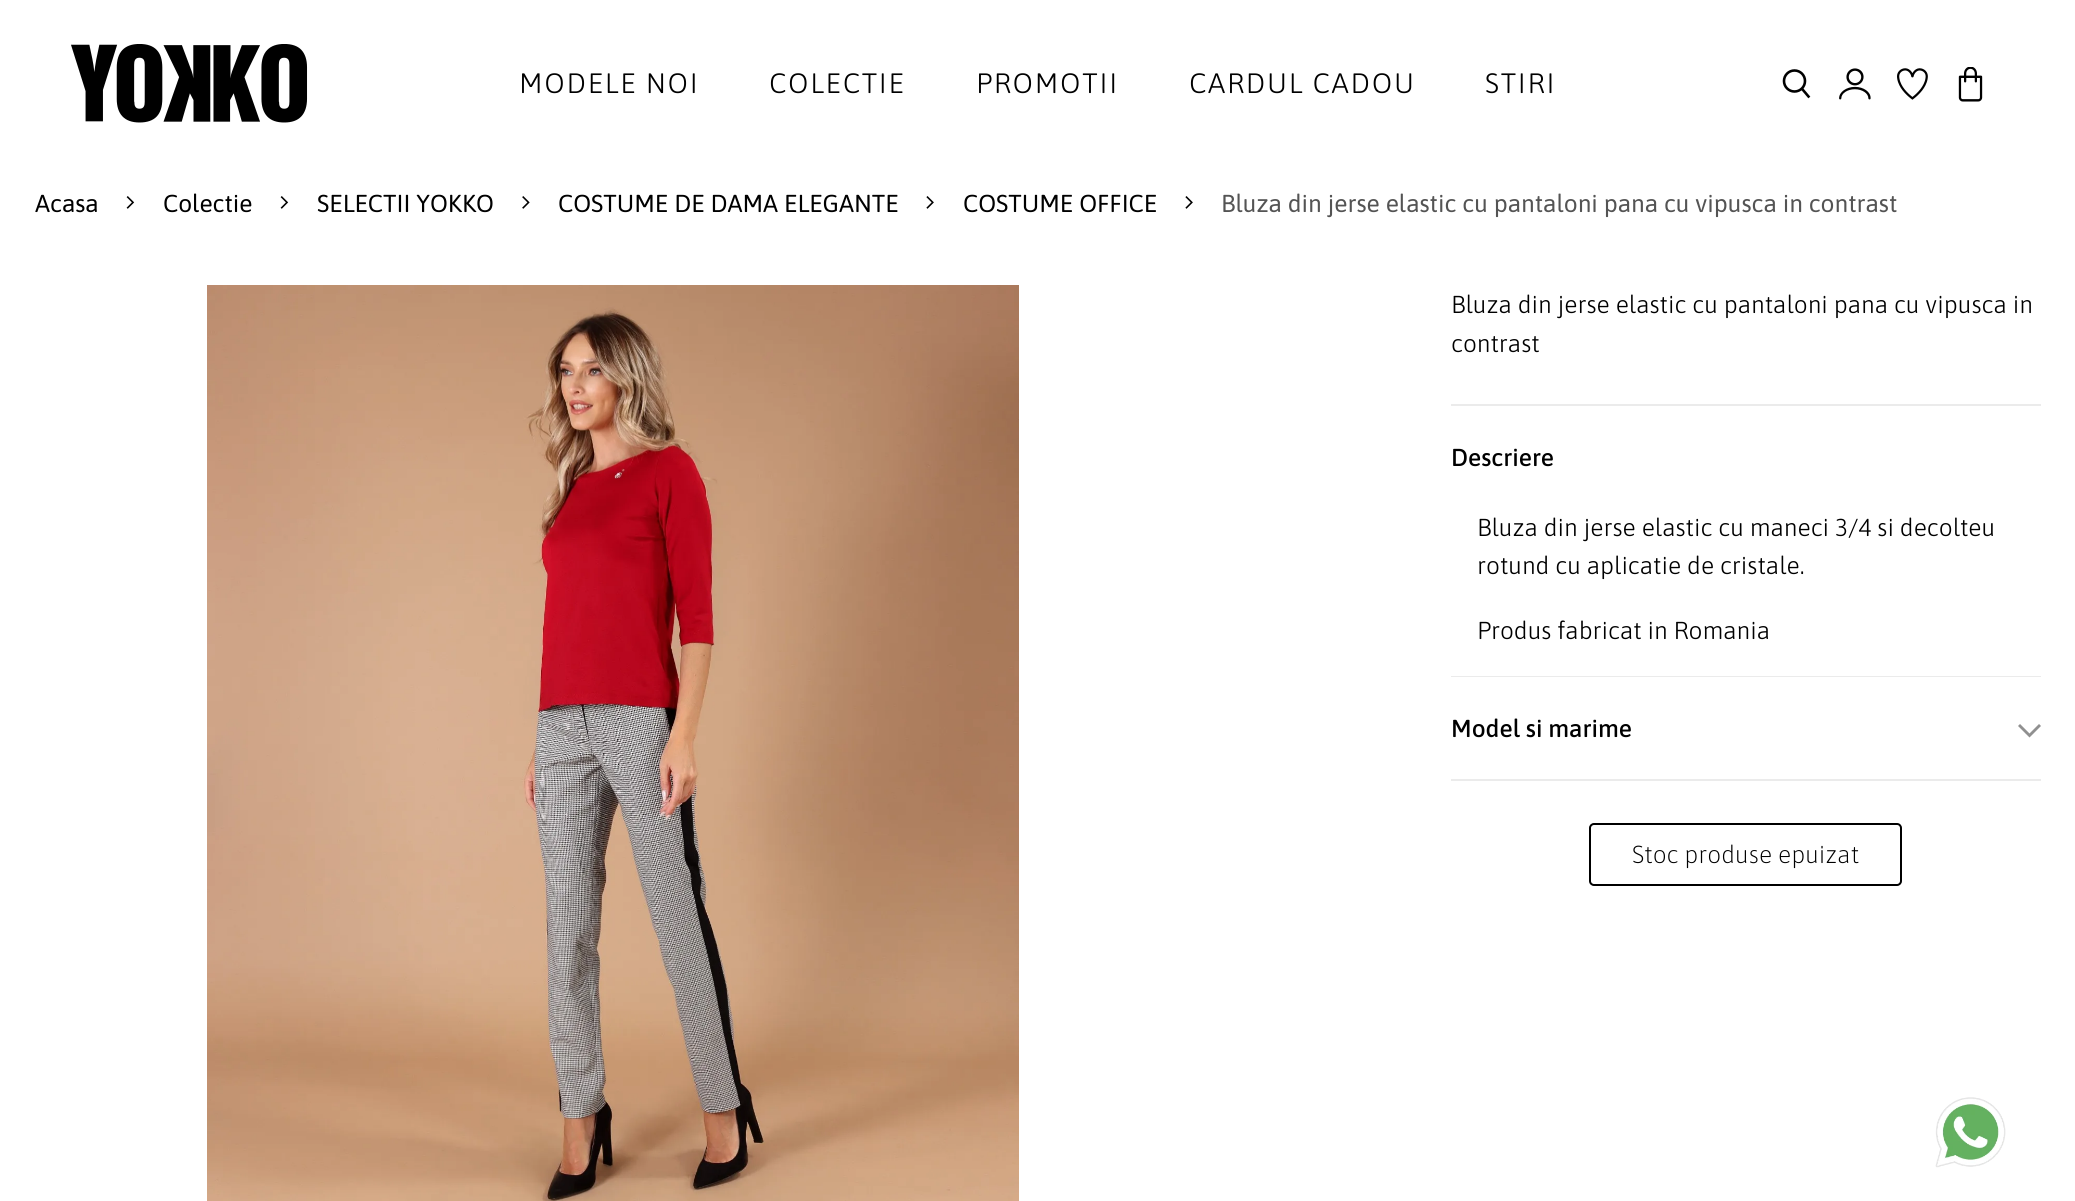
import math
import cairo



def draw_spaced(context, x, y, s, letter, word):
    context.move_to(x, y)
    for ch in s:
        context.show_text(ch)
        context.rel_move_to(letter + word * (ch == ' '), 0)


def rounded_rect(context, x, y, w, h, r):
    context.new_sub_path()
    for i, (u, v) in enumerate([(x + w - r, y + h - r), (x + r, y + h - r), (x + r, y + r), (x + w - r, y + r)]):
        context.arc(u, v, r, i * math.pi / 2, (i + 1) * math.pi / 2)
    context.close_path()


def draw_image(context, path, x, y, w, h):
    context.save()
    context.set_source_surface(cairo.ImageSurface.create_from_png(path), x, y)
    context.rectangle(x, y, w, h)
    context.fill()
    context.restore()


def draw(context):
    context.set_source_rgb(1, 1, 1)
    context.paint()
    draw_image(context, "images/1.png", 71, 44, 237, 79)
    context.arc(1794.5, 81, 10.5, 0, 2 * math.pi)
    context.set_source_rgb(0, 0, 0)
    context.set_line_width(2.6)
    context.stroke()
    context.new_path()
    context.move_to(1803, 90)
    context.line_to(1808.5, 96.5)
    context.set_line_cap(cairo.LineCap.SQUARE)
    context.stroke()
    draw_image(context, "images/2.png", 1839, 68, 32, 32)
    draw_image(context, "images/3.png", 1897, 68, 31, 32)
    draw_image(context, "images/4.png", 1958, 67, 25, 35)
    draw_image(context, "images/5.png", 126, 196, 9, 13)
    draw_image(context, "images/5.png", 280, 196, 9, 13)
    draw_image(context, "images/6.png", 522, 196, 8, 13)
    draw_image(context, "images/7.png", 926, 196, 8, 13)
    draw_image(context, "images/7.png", 1185, 196, 8, 13)
    draw_image(context, "images/8.png", 207, 285, 812, 916)
    context.set_source_rgb(235 / 255, 235 / 255, 235 / 255)
    context.rectangle(1451, 779, 590, 2)
    context.fill()
    context.rectangle(1451, 404, 590, 2)
    context.fill()
    context.rectangle(1451, 676, 590, 1)
    context.fill()
    context.set_source_rgb(144 / 255, 144 / 255, 144 / 255)
    context.new_path()
    context.move_to(2018, 726)
    context.line_to(2029.5, 737.5)
    context.line_to(2041, 726)
    context.line_to(2039, 724)
    context.line_to(2029.5, 733.5)
    context.line_to(2020, 724)
    context.close_path()
    context.fill()
    rounded_rect(context, 1590, 824, 311, 61, 4)
    context.set_source_rgb(0, 0, 0)
    context.set_line_width(2)
    context.set_line_cap(cairo.LineCap.BUTT)
    context.stroke()
    draw_image(context, "images/9.png", 1935, 1097, 71, 71)
    context.select_font_face("Asap Light")
    context.set_font_size(28)
    draw_spaced(context, 519, 93, "MODELE NOI", 1.75, 0)
    draw_spaced(context, 769, 93, "COLECTIE", 1.75, 0)
    draw_spaced(context, 976, 93, "PROMOTII", 1.75, 0)
    draw_spaced(context, 1189, 93, "CARDUL CADOU", 1.75, 0)
    draw_spaced(context, 1485, 93, "STIRI", 1.75, 0)
    context.select_font_face("Asap")
    context.set_font_size(24.5)
    context.move_to(35, 212)
    context.show_text("Acasa")
    context.move_to(163, 212)
    context.show_text("Colectie")
    context.move_to(317, 212)
    context.show_text("SELECTII YOKKO")
    context.move_to(558, 212)
    context.show_text("COSTUME DE DAMA ELEGANTE")
    context.move_to(963, 212)
    context.show_text("COSTUME OFFICE")
    context.set_source_rgb(84 / 255, 84 / 255, 84 / 255)
    context.move_to(1221, 212)
    context.show_text("Bluza din jerse elastic cu pantaloni pana cu vipusca in contrast")
    context.select_font_face("Asap Light")
    context.set_source_rgb(0, 0, 0)
    context.move_to(1451, 313)
    context.show_text("Bluza din jerse elastic cu pantaloni pana cu vipusca in")
    context.move_to(1451, 352)
    context.show_text("contrast")
    context.select_font_face("Asap Medium")
    context.move_to(1451, 466)
    context.show_text("Descriere")
    context.select_font_face("Asap Light")
    context.move_to(1477, 536)
    context.show_text("Bluza din jerse elastic cu maneci 3/4 si decolteu")
    context.move_to(1477, 574)
    context.show_text("rotund cu aplicatie de cristale.")
    context.move_to(1477, 639)
    context.show_text("Produs fabricat in Romania")
    context.select_font_face("Asap Medium")
    context.move_to(1451, 737)
    context.show_text("Model si marime")
    context.select_font_face("Asap ExtraLight")
    context.move_to(1632, 863)
    context.show_text("Stoc produse epuizat")


surface = cairo.ImageSurface(cairo.Format.RGB24, 2075, 1201)
context = cairo.Context(surface)
options = cairo.FontOptions()
options.set_hint_metrics(cairo.HintMetrics.OFF)
options.set_hint_style(cairo.HintStyle.NONE)
context.set_font_options(options)
context.set_miter_limit(4)
draw(context)
surface.write_to_png("out.png")
